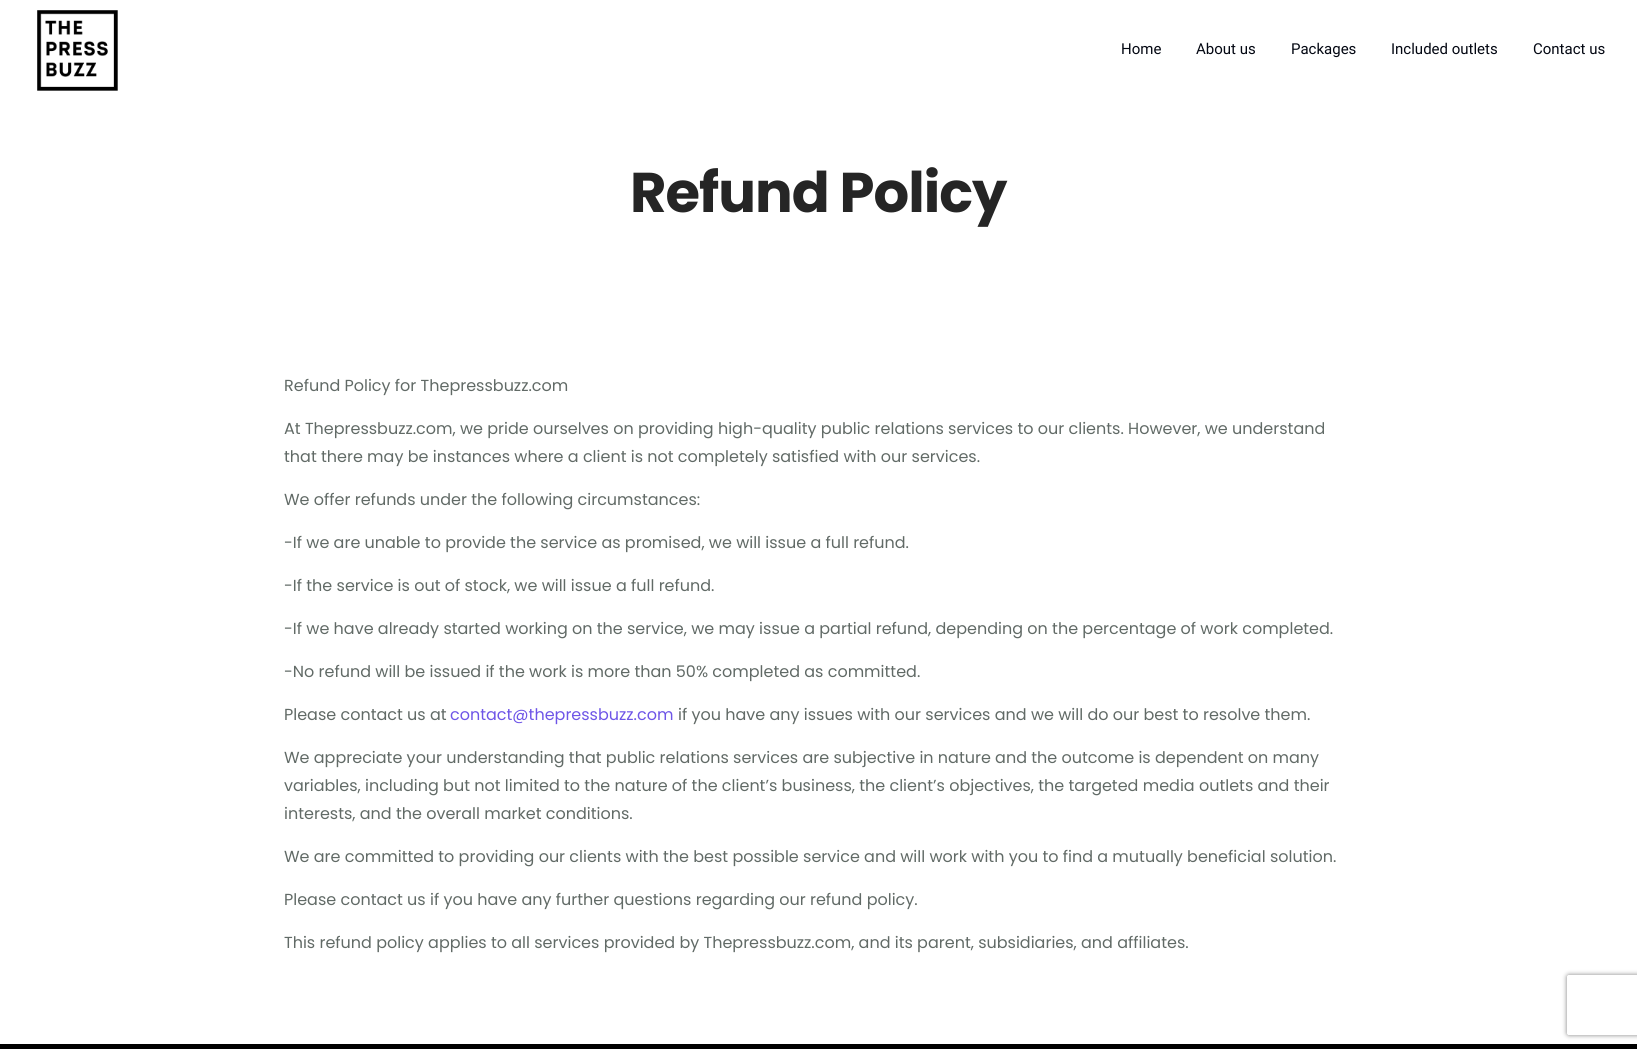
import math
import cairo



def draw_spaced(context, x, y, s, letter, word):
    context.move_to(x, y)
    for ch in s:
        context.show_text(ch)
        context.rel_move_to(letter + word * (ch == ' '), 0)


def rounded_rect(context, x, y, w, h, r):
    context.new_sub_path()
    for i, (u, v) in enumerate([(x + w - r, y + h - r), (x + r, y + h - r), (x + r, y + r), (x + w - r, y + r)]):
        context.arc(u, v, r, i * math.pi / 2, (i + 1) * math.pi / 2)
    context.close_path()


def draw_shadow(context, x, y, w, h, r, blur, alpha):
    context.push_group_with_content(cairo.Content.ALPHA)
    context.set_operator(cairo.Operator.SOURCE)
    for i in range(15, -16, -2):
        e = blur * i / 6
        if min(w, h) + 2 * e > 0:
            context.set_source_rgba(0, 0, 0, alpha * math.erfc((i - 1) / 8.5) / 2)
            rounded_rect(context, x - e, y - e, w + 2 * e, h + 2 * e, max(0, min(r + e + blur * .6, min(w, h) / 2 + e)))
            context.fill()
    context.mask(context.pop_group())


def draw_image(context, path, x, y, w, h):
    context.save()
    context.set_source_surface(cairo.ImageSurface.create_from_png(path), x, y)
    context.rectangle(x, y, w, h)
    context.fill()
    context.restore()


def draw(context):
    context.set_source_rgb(1, 1, 1)
    context.paint()
    draw_image(context, "images/1.png", 37, 10, 81, 81)
    context.set_source_rgb(0, 0, 0)
    context.rectangle(0, 1044, 1637, 5)
    context.fill()
    context.save()
    context.set_fill_rule(cairo.FillRule.EVEN_ODD)
    context.new_path()
    context.move_to(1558, 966)
    context.line_to(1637, 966)
    context.line_to(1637, 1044)
    context.line_to(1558, 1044)
    context.close_path()
    context.move_to(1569, 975)
    context.line_to(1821, 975)
    context.curve_to(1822, 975, 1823, 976, 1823, 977)
    context.line_to(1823, 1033)
    context.curve_to(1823, 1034, 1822, 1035, 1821, 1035)
    context.line_to(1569, 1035)
    context.curve_to(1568, 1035, 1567, 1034, 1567, 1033)
    context.line_to(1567, 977)
    context.curve_to(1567, 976, 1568, 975, 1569, 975)
    context.close_path()
    context.clip()
    context.set_source_rgb(128 / 255, 128 / 255, 128 / 255)
    draw_shadow(context, 1567, 975, 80, 60, 2, 2.5, 1)
    context.restore()
    context.select_font_face("Roboto")
    context.set_font_size(15)
    context.set_source_rgb(3 / 255, 7 / 255, 18 / 255)
    context.move_to(1121, 54)
    context.show_text("Home")
    context.move_to(1196, 54)
    context.show_text("About us")
    context.move_to(1291, 54)
    context.show_text("Packages")
    context.move_to(1391, 54)
    context.show_text("Included outlets")
    context.move_to(1533, 54)
    context.show_text("Contact us")
    context.select_font_face("Poppins", cairo.FontSlant.NORMAL, cairo.FontWeight.BOLD)
    context.set_font_size(56)
    context.set_source_rgb(37 / 255, 37 / 255, 37 / 255)
    draw_spaced(context, 630, 212, "Refund Policy", -1, 0)
    context.select_font_face("Poppins")
    context.set_font_size(16)
    context.set_source_rgb(97 / 255, 106 / 255, 102 / 255)
    context.move_to(284, 391)
    context.show_text("Refund Policy for Thepressbuzz.com")
    context.move_to(284, 434)
    context.show_text("At Thepressbuzz.com, we pride ourselves on providing high-quality public relations services to our clients. However, we understand")
    context.move_to(284, 462)
    context.show_text("that there may be instances where a client is not completely satisfied with our services.")
    context.move_to(284, 505)
    context.show_text("We offer refunds under the following circumstances:")
    context.move_to(284, 548)
    context.show_text("-If we are unable to provide the service as promised, we will issue a full refund.")
    context.move_to(284, 591)
    context.show_text("-If the service is out of stock, we will issue a full refund.")
    context.move_to(284, 634)
    context.show_text("-If we have already started working on the service, we may issue a partial refund, depending on the percentage of work completed.")
    context.move_to(284, 677)
    context.show_text("-No refund will be issued if the work is more than 50% completed as committed.")
    context.move_to(284, 720)
    context.show_text("Please contact us at")
    context.set_source_rgb(110 / 255, 85 / 255, 231 / 255)
    context.move_to(450, 720)
    context.show_text("contact@thepressbuzz.com")
    context.set_source_rgb(97 / 255, 106 / 255, 102 / 255)
    context.move_to(678, 720)
    context.show_text("if you have any issues with our services and we will do our best to resolve them.")
    context.move_to(284, 763)
    context.show_text("We appreciate your understanding that public relations services are subjective in nature and the outcome is dependent on many")
    context.move_to(284, 791)
    context.show_text("variables, including but not limited to the nature of the client’s business, the client’s objectives, the targeted media outlets and their")
    context.move_to(284, 819)
    context.show_text("interests, and the overall market conditions.")
    context.move_to(284, 862)
    context.show_text("We are committed to providing our clients with the best possible service and will work with you to find a mutually beneficial solution.")
    context.move_to(284, 905)
    context.show_text("Please contact us if you have any further questions regarding our refund policy.")
    context.move_to(284, 948)
    context.show_text("This refund policy applies to all services provided by Thepressbuzz.com, and its parent, subsidiaries, and affiliates.")


surface = cairo.ImageSurface(cairo.Format.RGB24, 1637, 1049)
context = cairo.Context(surface)
options = cairo.FontOptions()
options.set_hint_metrics(cairo.HintMetrics.OFF)
options.set_hint_style(cairo.HintStyle.NONE)
context.set_font_options(options)
context.set_miter_limit(4)
draw(context)
surface.write_to_png("out.png")
